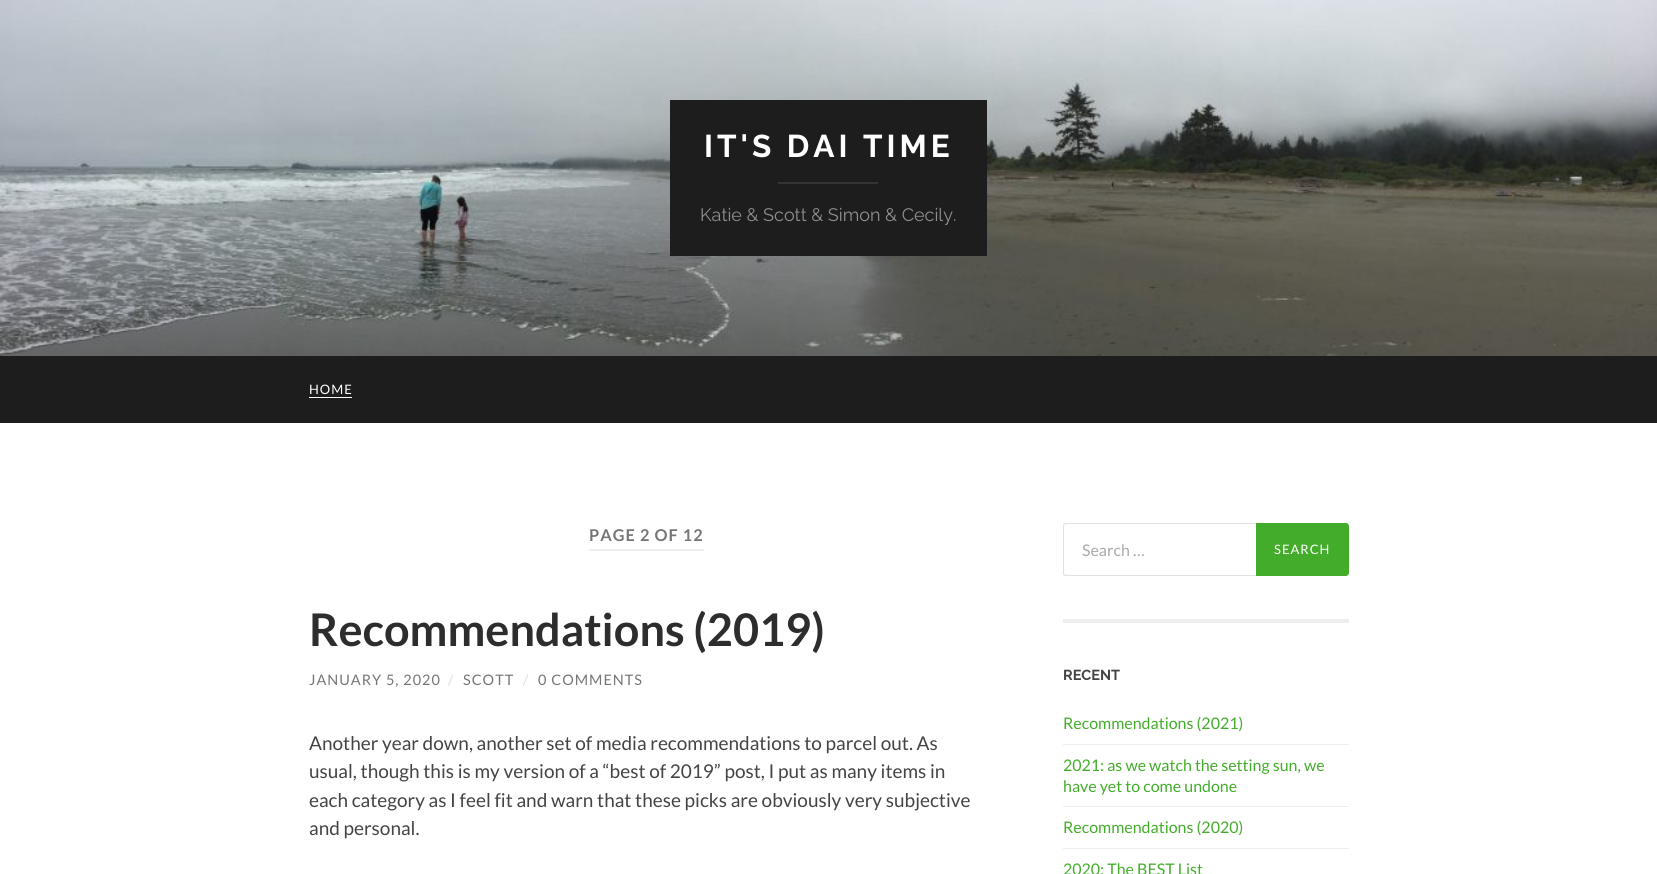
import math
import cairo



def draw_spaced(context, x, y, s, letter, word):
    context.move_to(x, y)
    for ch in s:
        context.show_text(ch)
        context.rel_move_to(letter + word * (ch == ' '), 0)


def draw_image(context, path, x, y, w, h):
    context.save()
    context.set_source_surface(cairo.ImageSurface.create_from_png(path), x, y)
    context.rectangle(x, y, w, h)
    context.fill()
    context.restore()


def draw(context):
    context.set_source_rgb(1, 1, 1)
    context.paint()
    draw_image(context, "images/1.png", 0, 0, 1657, 356)
    context.set_source_rgb(29 / 255, 29 / 255, 29 / 255)
    context.rectangle(670, 100, 317, 156)
    context.fill()
    context.set_source_rgb(52 / 255, 52 / 255, 52 / 255)
    context.rectangle(778, 182, 100, 2)
    context.fill()
    context.set_source_rgb(29 / 255, 29 / 255, 29 / 255)
    context.rectangle(0, 356, 1657, 67)
    context.fill()
    context.set_source_rgb(1, 1, 1)
    context.rectangle(309, 397, 43, 1)
    context.fill()
    context.set_source_rgb(238 / 255, 238 / 255, 238 / 255)
    context.rectangle(589, 549, 115, 2)
    context.fill()
    context.rectangle(1063, 619, 286, 4)
    context.fill()
    context.set_source_rgb(225 / 255, 225 / 255, 227 / 255)
    context.set_fill_rule(cairo.FillRule.EVEN_ODD)
    context.new_path()
    context.move_to(1066, 523)
    context.line_to(1256, 523)
    context.line_to(1256, 576)
    context.line_to(1066, 576)
    context.curve_to(1064, 576, 1063, 575, 1063, 573)
    context.line_to(1063, 526)
    context.curve_to(1063, 524, 1064, 523, 1066, 523)
    context.close_path()
    context.move_to(1066, 524)
    context.line_to(1256, 524)
    context.line_to(1256, 575)
    context.line_to(1066, 575)
    context.curve_to(1065, 575, 1064, 574, 1064, 573)
    context.line_to(1064, 526)
    context.curve_to(1064, 525, 1065, 524, 1066, 524)
    context.close_path()
    context.fill()
    context.set_source_rgb(67 / 255, 173 / 255, 43 / 255)
    context.new_path()
    context.move_to(1256, 523)
    context.line_to(1346, 523)
    context.curve_to(1347.5, 523, 1349, 524.5, 1349, 526)
    context.line_to(1349, 573)
    context.curve_to(1349, 574.5, 1347.5, 576, 1346, 576)
    context.line_to(1256, 576)
    context.close_path()
    context.fill()
    context.set_source_rgb(238 / 255, 238 / 255, 238 / 255)
    context.rectangle(1063, 744, 286, 1)
    context.fill()
    context.rectangle(1063, 806, 286, 1)
    context.fill()
    context.rectangle(1063, 848, 286, 1)
    context.fill()
    context.select_font_face("Raleway Thin")
    context.set_font_size(31.5)
    context.set_source_rgb(1, 1, 1)
    draw_spaced(context, 704, 157, "IT'S DAI TIME", 4, 0)
    context.select_font_face("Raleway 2 Thin")
    context.set_font_size(18)
    context.set_source_rgb(142 / 255, 142 / 255, 142 / 255)
    context.move_to(700, 221)
    context.show_text("Katie & Scott & Simon & Cecily.")
    context.select_font_face("Lato")
    context.set_font_size(13)
    context.set_source_rgb(1, 1, 1)
    draw_spaced(context, 309, 394, "HOME", 1, 0)
    context.select_font_face("Lato", cairo.FontSlant.NORMAL, cairo.FontWeight.BOLD)
    context.set_font_size(16.25)
    context.set_source_rgb(118 / 255, 118 / 255, 118 / 255)
    draw_spaced(context, 589, 541, "PAGE 2 OF 12", 1, 0)
    context.set_font_size(45)
    context.set_source_rgb(45 / 255, 45 / 255, 45 / 255)
    context.move_to(309, 646)
    context.show_text("Recommendations (2019)")
    context.select_font_face("Lato")
    context.set_font_size(14.5)
    context.set_source_rgb(118 / 255, 118 / 255, 118 / 255)
    draw_spaced(context, 309, 685, "JANUARY 5, 2020", 1, 0)
    context.set_source_rgb(221 / 255, 221 / 255, 221 / 255)
    draw_spaced(context, 448, 685, "/", 1, 0)
    context.set_source_rgb(118 / 255, 118 / 255, 118 / 255)
    draw_spaced(context, 463, 685, "SCOTT", 1, 0)
    context.set_source_rgb(221 / 255, 221 / 255, 221 / 255)
    draw_spaced(context, 523, 685, "/", 1, 0)
    context.set_source_rgb(118 / 255, 118 / 255, 118 / 255)
    draw_spaced(context, 538, 685, "0 COMMENTS", 1, 0)
    context.set_font_size(19)
    context.set_source_rgb(68 / 255, 68 / 255, 68 / 255)
    context.move_to(309, 750)
    context.show_text("Another year down, another set of media recommendations to parcel out. As")
    context.move_to(309, 778)
    context.show_text("usual, though this is my version of a “best of 2019” post, I put as many items in")
    context.move_to(309, 807)
    context.show_text("each category as I feel fit and warn that these picks are obviously very subjective")
    context.move_to(309, 835)
    context.show_text("and personal.")
    context.set_font_size(16)
    context.set_source_rgb(169 / 255, 169 / 255, 169 / 255)
    context.move_to(1082, 556)
    context.show_text("Search …")
    context.set_font_size(13)
    context.set_source_rgb(1, 1, 1)
    draw_spaced(context, 1274, 554, "SEARCH", 1, 0)
    context.select_font_face("Raleway Thin")
    context.set_font_size(14.5)
    context.set_source_rgb(68 / 255, 68 / 255, 68 / 255)
    context.move_to(1063, 680)
    context.show_text("RECENT")
    context.select_font_face("Lato")
    context.set_font_size(16)
    context.set_source_rgb(67 / 255, 173 / 255, 43 / 255)
    context.move_to(1063, 729)
    context.show_text("Recommendations (2021)")
    context.move_to(1063, 771)
    context.show_text("2021: as we watch the setting sun, we")
    context.move_to(1063, 792)
    context.show_text("have yet to come undone")
    context.move_to(1063, 833)
    context.show_text("Recommendations (2020)")
    context.move_to(1063, 875)
    context.show_text("2020: The BEST List")


surface = cairo.ImageSurface(cairo.Format.RGB24, 1657, 874)
context = cairo.Context(surface)
options = cairo.FontOptions()
options.set_hint_metrics(cairo.HintMetrics.OFF)
options.set_hint_style(cairo.HintStyle.NONE)
context.set_font_options(options)
context.set_miter_limit(4)
draw(context)
surface.write_to_png("out.png")
